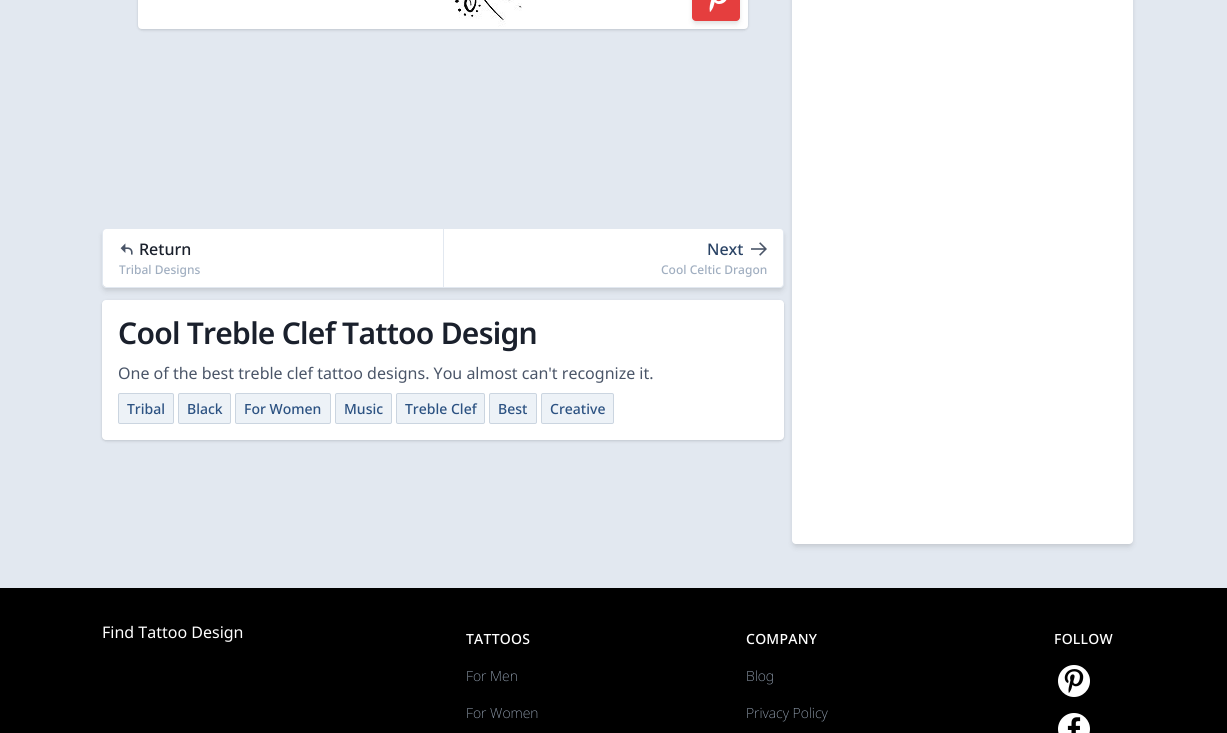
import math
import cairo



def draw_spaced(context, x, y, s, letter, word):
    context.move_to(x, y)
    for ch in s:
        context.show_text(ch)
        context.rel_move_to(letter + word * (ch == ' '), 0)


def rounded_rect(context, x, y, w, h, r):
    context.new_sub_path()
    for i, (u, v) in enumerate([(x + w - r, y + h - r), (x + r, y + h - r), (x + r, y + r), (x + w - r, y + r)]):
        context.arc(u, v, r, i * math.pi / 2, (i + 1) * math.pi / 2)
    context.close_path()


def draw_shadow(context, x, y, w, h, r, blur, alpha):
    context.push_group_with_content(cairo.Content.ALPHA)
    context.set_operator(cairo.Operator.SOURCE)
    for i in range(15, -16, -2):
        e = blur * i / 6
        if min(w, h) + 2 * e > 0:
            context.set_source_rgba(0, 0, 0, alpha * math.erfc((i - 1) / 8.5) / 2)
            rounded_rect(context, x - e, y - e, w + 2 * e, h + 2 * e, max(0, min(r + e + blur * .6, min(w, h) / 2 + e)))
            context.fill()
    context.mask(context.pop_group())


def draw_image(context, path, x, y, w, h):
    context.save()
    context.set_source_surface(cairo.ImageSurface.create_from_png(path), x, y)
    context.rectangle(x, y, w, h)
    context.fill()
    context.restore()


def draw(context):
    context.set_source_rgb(226 / 255, 232 / 255, 240 / 255)
    context.paint()
    context.set_source_rgb(0, 0, 0)
    draw_shadow(context, 138, -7, 610, 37, 4, 1, 0.06)
    draw_shadow(context, 138, -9, 610, 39, 4, 1.5, 0.1)
    draw_image(context, "images/2.png", 138, 0, 610, 29)
    draw_shadow(context, 693, -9, 46, 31, 3, 2, 0.06)
    draw_shadow(context, 693, -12, 46, 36, 3, 3, 0.1)
    context.set_source_rgb(229 / 255, 62 / 255, 62 / 255)
    rounded_rect(context, 692, -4, 48, 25, 4)
    context.fill()
    draw_image(context, "images/1.png", 709, 0, 18, 12)
    context.set_source_rgb(0, 0, 0)
    draw_shadow(context, 103, 231, 680, 58, 3, 2, 0.06)
    draw_shadow(context, 103, 233, 680, 58, 3, 3, 0.1)
    context.set_source_rgb(1, 1, 1)
    context.new_path()
    context.move_to(106, 229)
    context.line_to(443, 229)
    context.line_to(443, 287)
    context.line_to(106, 287)
    context.curve_to(104.5, 287, 103, 285.5, 103, 284)
    context.line_to(103, 232)
    context.curve_to(103, 230.5, 104.5, 229, 106, 229)
    context.close_path()
    context.fill()
    context.set_source_rgb(226 / 255, 232 / 255, 240 / 255)
    context.set_fill_rule(cairo.FillRule.EVEN_ODD)
    context.new_path()
    context.move_to(106, 228)
    context.line_to(443, 228)
    context.line_to(443, 288)
    context.line_to(106, 288)
    context.curve_to(104, 288, 102, 286, 102, 284)
    context.line_to(102, 232)
    context.curve_to(102, 230, 104, 228, 106, 228)
    context.close_path()
    context.move_to(106, 229)
    context.line_to(443, 229)
    context.line_to(443, 287)
    context.line_to(106, 287)
    context.curve_to(104, 287, 103, 286, 103, 284)
    context.line_to(103, 232)
    context.curve_to(103, 230, 104, 229, 106, 229)
    context.close_path()
    context.fill()
    draw_image(context, "images/3.png", 120, 243, 13, 12)
    context.set_source_rgb(1, 1, 1)
    context.new_path()
    context.move_to(443.5, 228.5)
    context.line_to(780, 228.5)
    context.curve_to(782, 228.5, 783.5, 230, 783.5, 232)
    context.line_to(783.5, 284)
    context.curve_to(783.5, 286, 782, 287.5, 780, 287.5)
    context.line_to(443.5, 287.5)
    context.close_path()
    context.fill_preserve()
    context.set_source_rgb(226 / 255, 232 / 255, 240 / 255)
    context.set_line_width(1)
    context.stroke()
    draw_image(context, "images/4.png", 751, 242, 16, 14)
    context.set_source_rgb(0, 0, 0)
    draw_shadow(context, 102, 301, 682, 140, 4, 1, 0.06)
    draw_shadow(context, 102, 301, 682, 140, 4, 1.5, 0.1)
    context.set_source_rgb(1, 1, 1)
    rounded_rect(context, 102, 300, 682, 140, 4)
    context.fill()
    context.set_source_rgb(237 / 255, 242 / 255, 247 / 255)
    rounded_rect(context, 118.5, 393.5, 55, 30, 1.5)
    context.fill_preserve()
    context.set_source_rgb(203 / 255, 213 / 255, 224 / 255)
    context.stroke()
    context.set_source_rgb(237 / 255, 242 / 255, 247 / 255)
    rounded_rect(context, 178.5, 393.5, 52, 30, 1.5)
    context.fill_preserve()
    context.set_source_rgb(203 / 255, 213 / 255, 224 / 255)
    context.stroke()
    context.set_source_rgb(237 / 255, 242 / 255, 247 / 255)
    rounded_rect(context, 235.5, 393.5, 95, 30, 1.5)
    context.fill_preserve()
    context.set_source_rgb(203 / 255, 213 / 255, 224 / 255)
    context.stroke()
    context.set_source_rgb(237 / 255, 242 / 255, 247 / 255)
    rounded_rect(context, 335.5, 393.5, 56, 30, 1.5)
    context.fill_preserve()
    context.set_source_rgb(203 / 255, 213 / 255, 224 / 255)
    context.stroke()
    context.set_source_rgb(237 / 255, 242 / 255, 247 / 255)
    rounded_rect(context, 396.5, 393.5, 88, 30, 1.5)
    context.fill_preserve()
    context.set_source_rgb(203 / 255, 213 / 255, 224 / 255)
    context.stroke()
    context.set_source_rgb(237 / 255, 242 / 255, 247 / 255)
    rounded_rect(context, 489.5, 393.5, 47, 30, 1.5)
    context.fill_preserve()
    context.set_source_rgb(203 / 255, 213 / 255, 224 / 255)
    context.stroke()
    context.set_source_rgb(237 / 255, 242 / 255, 247 / 255)
    rounded_rect(context, 541.5, 393.5, 72, 30, 1.5)
    context.fill_preserve()
    context.set_source_rgb(203 / 255, 213 / 255, 224 / 255)
    context.stroke()
    context.set_source_rgb(0, 0, 0)
    draw_shadow(context, 793, -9, 339, 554, 3, 2, 0.06)
    draw_shadow(context, 793, -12, 339, 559, 3, 3, 0.1)
    context.set_source_rgb(1, 1, 1)
    rounded_rect(context, 792, -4, 341, 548, 4)
    context.fill()
    context.set_source_rgb(0, 0, 0)
    context.rectangle(0, 588, 1227, 145)
    context.fill()
    draw_image(context, "images/5.png", 1058, 665, 32, 32)
    draw_image(context, "images/6.png", 1058, 713, 32, 20)
    context.select_font_face("Noto Sans Medium")
    context.set_font_size(16)
    context.set_source_rgb(26 / 255, 32 / 255, 44 / 255)
    context.move_to(139, 255)
    context.show_text("Return")
    context.set_font_size(12)
    context.set_source_rgb(160 / 255, 174 / 255, 192 / 255)
    context.move_to(119, 274)
    context.show_text("Tribal Designs")
    context.set_font_size(16)
    context.set_source_rgb(42 / 255, 67 / 255, 101 / 255)
    context.move_to(707, 255)
    context.show_text("Next")
    context.set_font_size(12)
    context.set_source_rgb(160 / 255, 174 / 255, 192 / 255)
    context.move_to(661, 274)
    context.show_text("Cool Celtic Dragon")
    context.select_font_face("Noto Sans SemiBold")
    context.set_font_size(30)
    context.set_source_rgb(26 / 255, 32 / 255, 44 / 255)
    draw_spaced(context, 118, 344, "Cool Treble Clef Tattoo Design", -0.75, 0)
    context.select_font_face("Noto Sans")
    context.set_font_size(16)
    context.set_source_rgb(74 / 255, 85 / 255, 104 / 255)
    context.move_to(118, 379)
    context.show_text("One of the best treble clef tattoo designs. You almost can't recognize it.")
    context.select_font_face("Noto Sans Medium")
    context.set_font_size(14)
    context.set_source_rgb(44 / 255, 82 / 255, 130 / 255)
    context.move_to(127, 414)
    context.show_text("Tribal")
    context.move_to(187, 414)
    context.show_text("Black")
    context.move_to(244, 414)
    context.show_text("For Women")
    context.move_to(344, 414)
    context.show_text("Music")
    context.move_to(405, 414)
    context.show_text("Treble Clef")
    context.move_to(498, 414)
    context.show_text("Best")
    context.move_to(550, 414)
    context.show_text("Creative")
    context.select_font_face("Noto Sans")
    context.set_font_size(16)
    context.set_source_rgb(1, 1, 1)
    context.move_to(102, 638)
    context.show_text("Find Tattoo Design")
    context.select_font_face("Noto Sans Medium")
    context.set_font_size(14)
    draw_spaced(context, 466, 644, "TATTOOS", 0.25, 0)
    context.select_font_face("Noto Sans ExtraLight")
    context.set_source_rgb(160 / 255, 174 / 255, 192 / 255)
    context.move_to(466, 681)
    context.show_text("For Men")
    context.move_to(466, 718)
    context.show_text("For Women")
    context.select_font_face("Noto Sans Medium")
    context.set_source_rgb(1, 1, 1)
    draw_spaced(context, 746, 644, "COMPANY", 0.25, 0)
    context.select_font_face("Noto Sans ExtraLight")
    context.set_source_rgb(160 / 255, 174 / 255, 192 / 255)
    context.move_to(746, 681)
    context.show_text("Blog")
    context.move_to(746, 718)
    context.show_text("Privacy Policy")
    context.select_font_face("Noto Sans Medium")
    context.set_source_rgb(1, 1, 1)
    draw_spaced(context, 1054, 644, "FOLLOW", 0.25, 0)


surface = cairo.ImageSurface(cairo.Format.RGB24, 1227, 733)
context = cairo.Context(surface)
options = cairo.FontOptions()
options.set_hint_metrics(cairo.HintMetrics.OFF)
options.set_hint_style(cairo.HintStyle.NONE)
context.set_font_options(options)
context.set_miter_limit(4)
draw(context)
surface.write_to_png("out.png")
